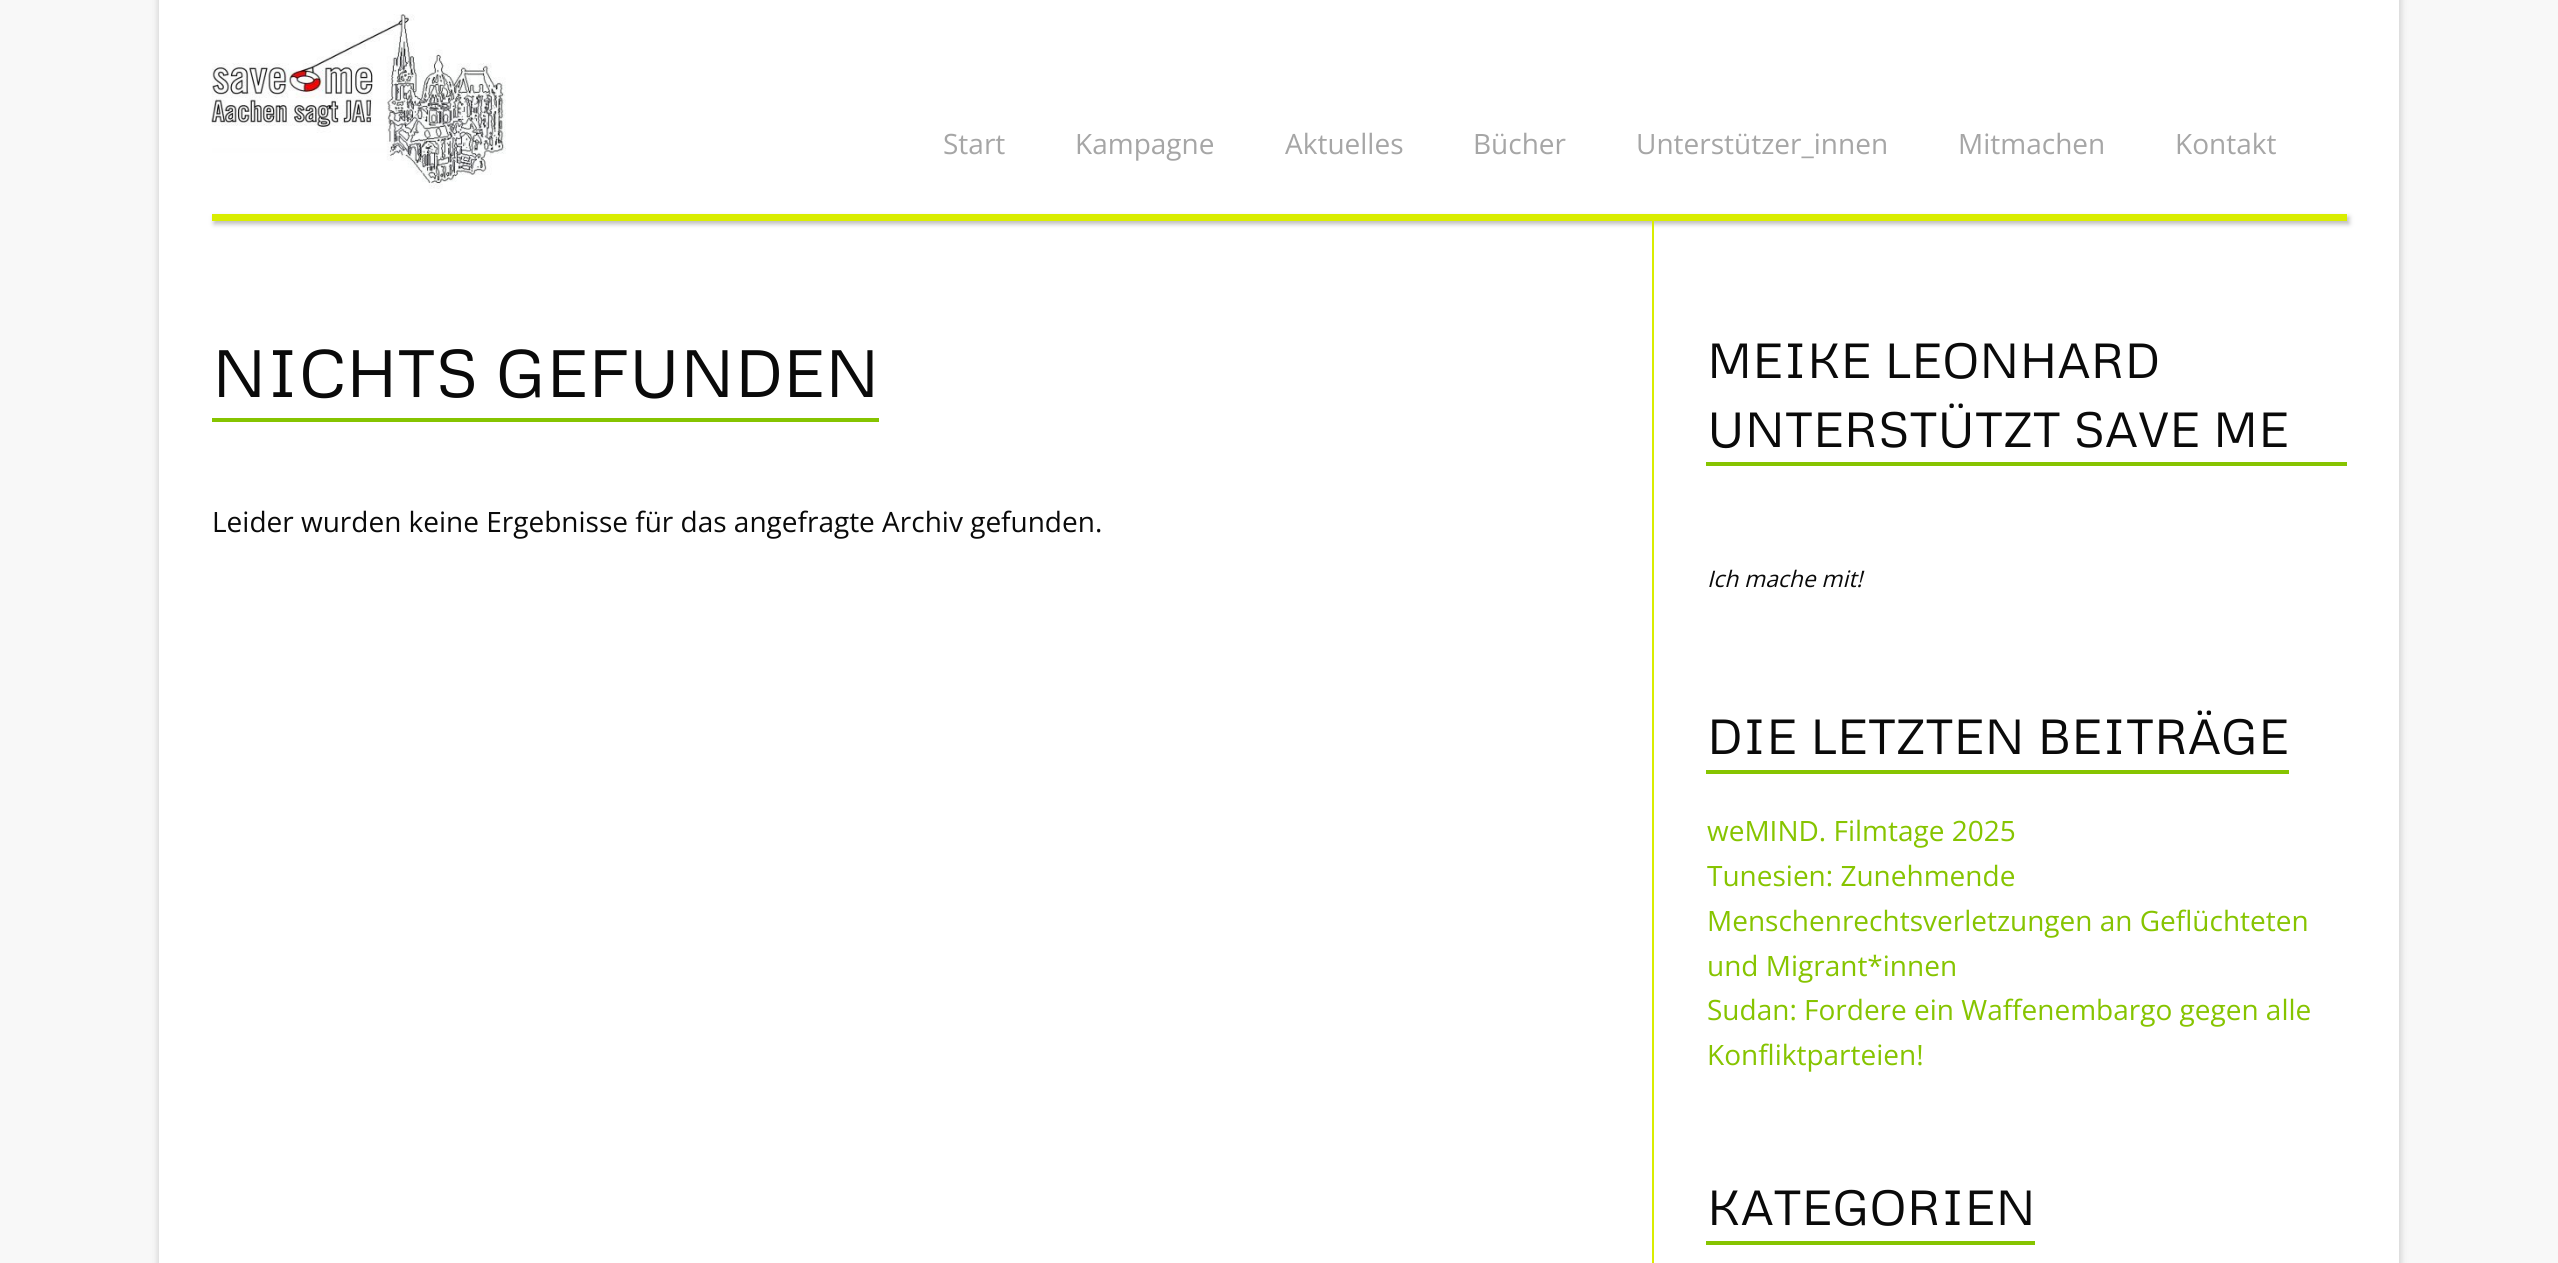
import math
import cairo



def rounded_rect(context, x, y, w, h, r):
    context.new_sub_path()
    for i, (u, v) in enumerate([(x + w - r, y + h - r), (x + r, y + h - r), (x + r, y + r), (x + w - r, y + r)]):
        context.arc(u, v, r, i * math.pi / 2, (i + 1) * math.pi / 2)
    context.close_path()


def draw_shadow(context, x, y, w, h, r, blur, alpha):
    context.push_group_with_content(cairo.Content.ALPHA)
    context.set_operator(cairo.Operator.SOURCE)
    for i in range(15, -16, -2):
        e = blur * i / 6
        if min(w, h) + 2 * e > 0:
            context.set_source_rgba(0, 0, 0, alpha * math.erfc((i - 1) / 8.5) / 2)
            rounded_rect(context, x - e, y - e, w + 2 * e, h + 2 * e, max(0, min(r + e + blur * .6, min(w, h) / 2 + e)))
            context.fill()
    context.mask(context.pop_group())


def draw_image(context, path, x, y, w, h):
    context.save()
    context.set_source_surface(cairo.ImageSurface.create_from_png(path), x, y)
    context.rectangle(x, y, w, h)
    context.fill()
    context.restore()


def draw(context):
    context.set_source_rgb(248 / 255, 248 / 255, 248 / 255)
    context.paint()
    context.set_source_rgb(209 / 255, 209 / 255, 209 / 255)
    draw_shadow(context, 158, -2, 2243, 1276, 0, 3.5, 1)
    context.set_source_rgb(1, 1, 1)
    context.rectangle(159, 0, 2240, 1263)
    context.fill()
    draw_image(context, "images/1.png", 211, 14, 295, 175)
    context.set_source_rgb(186 / 255, 186 / 255, 186 / 255)
    draw_shadow(context, 214, 217, 2135, 7, 0, 2.5, 1)
    context.set_source_rgb(217 / 255, 237 / 255, 0)
    context.rectangle(212, 214, 2135, 7)
    context.fill()
    context.set_source_rgb(134 / 255, 196 / 255, 0)
    context.rectangle(212, 418, 667, 4)
    context.fill()
    context.set_source_rgb(217 / 255, 237 / 255, 0)
    context.rectangle(1652, 221, 2, 1042)
    context.fill()
    context.set_source_rgb(134 / 255, 196 / 255, 0)
    context.rectangle(1706, 462, 641, 4)
    context.fill()
    context.rectangle(1706, 770, 583, 4)
    context.fill()
    context.rectangle(1706, 1241, 329, 4)
    context.fill()
    context.select_font_face("Open Sans")
    context.set_font_size(28)
    context.set_source_rgb(166 / 255, 166 / 255, 166 / 255)
    context.move_to(943, 154)
    context.show_text("Start")
    context.move_to(1075, 154)
    context.show_text("Kampagne")
    context.move_to(1285, 154)
    context.show_text("Aktuelles")
    context.move_to(1473, 154)
    context.show_text("Bücher")
    context.move_to(1636, 154)
    context.show_text("Unterstützer_innen")
    context.move_to(1958, 154)
    context.show_text("Mitmachen")
    context.move_to(2175, 154)
    context.show_text("Kontakt")
    context.select_font_face("Metrophobic")
    context.set_font_size(66.5)
    context.set_source_rgb(10 / 255, 10 / 255, 10 / 255)
    context.move_to(212, 397)
    context.show_text("NICHTS GEFUNDEN")
    context.select_font_face("Open Sans")
    context.set_font_size(28)
    context.move_to(212, 532)
    context.show_text("Leider wurden keine Ergebnisse für das angefragte Archiv gefunden.")
    context.select_font_face("Metrophobic")
    context.set_font_size(49)
    context.move_to(1707, 378)
    context.show_text("MEIKE LEONHARD")
    context.move_to(1707, 447)
    context.show_text("UNTERSTÜTZT SAVE ME")
    context.select_font_face("Open Sans", cairo.FontSlant.ITALIC)
    context.set_font_size(22.75)
    context.move_to(1707, 587)
    context.show_text("Ich mache mit!")
    context.select_font_face("Metrophobic")
    context.set_font_size(49)
    context.move_to(1707, 754)
    context.show_text("DIE LETZTEN BEITRÄGE")
    context.select_font_face("Open Sans")
    context.set_font_size(28)
    context.set_source_rgb(134 / 255, 196 / 255, 0)
    context.move_to(1707, 841)
    context.show_text("weMIND. Filmtage 2025")
    context.move_to(1707, 886)
    context.show_text("Tunesien: Zunehmende")
    context.move_to(1707, 931)
    context.show_text("Menschenrechtsverletzungen an Geflüchteten")
    context.move_to(1707, 976)
    context.show_text("und Migrant*innen")
    context.move_to(1707, 1020)
    context.show_text("Sudan: Fordere ein Waffenembargo gegen alle")
    context.move_to(1707, 1065)
    context.show_text("Konfliktparteien!")
    context.select_font_face("Metrophobic")
    context.set_font_size(49)
    context.set_source_rgb(10 / 255, 10 / 255, 10 / 255)
    context.move_to(1707, 1225)
    context.show_text("KATEGORIEN")


surface = cairo.ImageSurface(cairo.Format.RGB24, 2558, 1263)
context = cairo.Context(surface)
options = cairo.FontOptions()
options.set_hint_metrics(cairo.HintMetrics.OFF)
options.set_hint_style(cairo.HintStyle.NONE)
context.set_font_options(options)
context.set_miter_limit(4)
draw(context)
surface.write_to_png("out.png")
